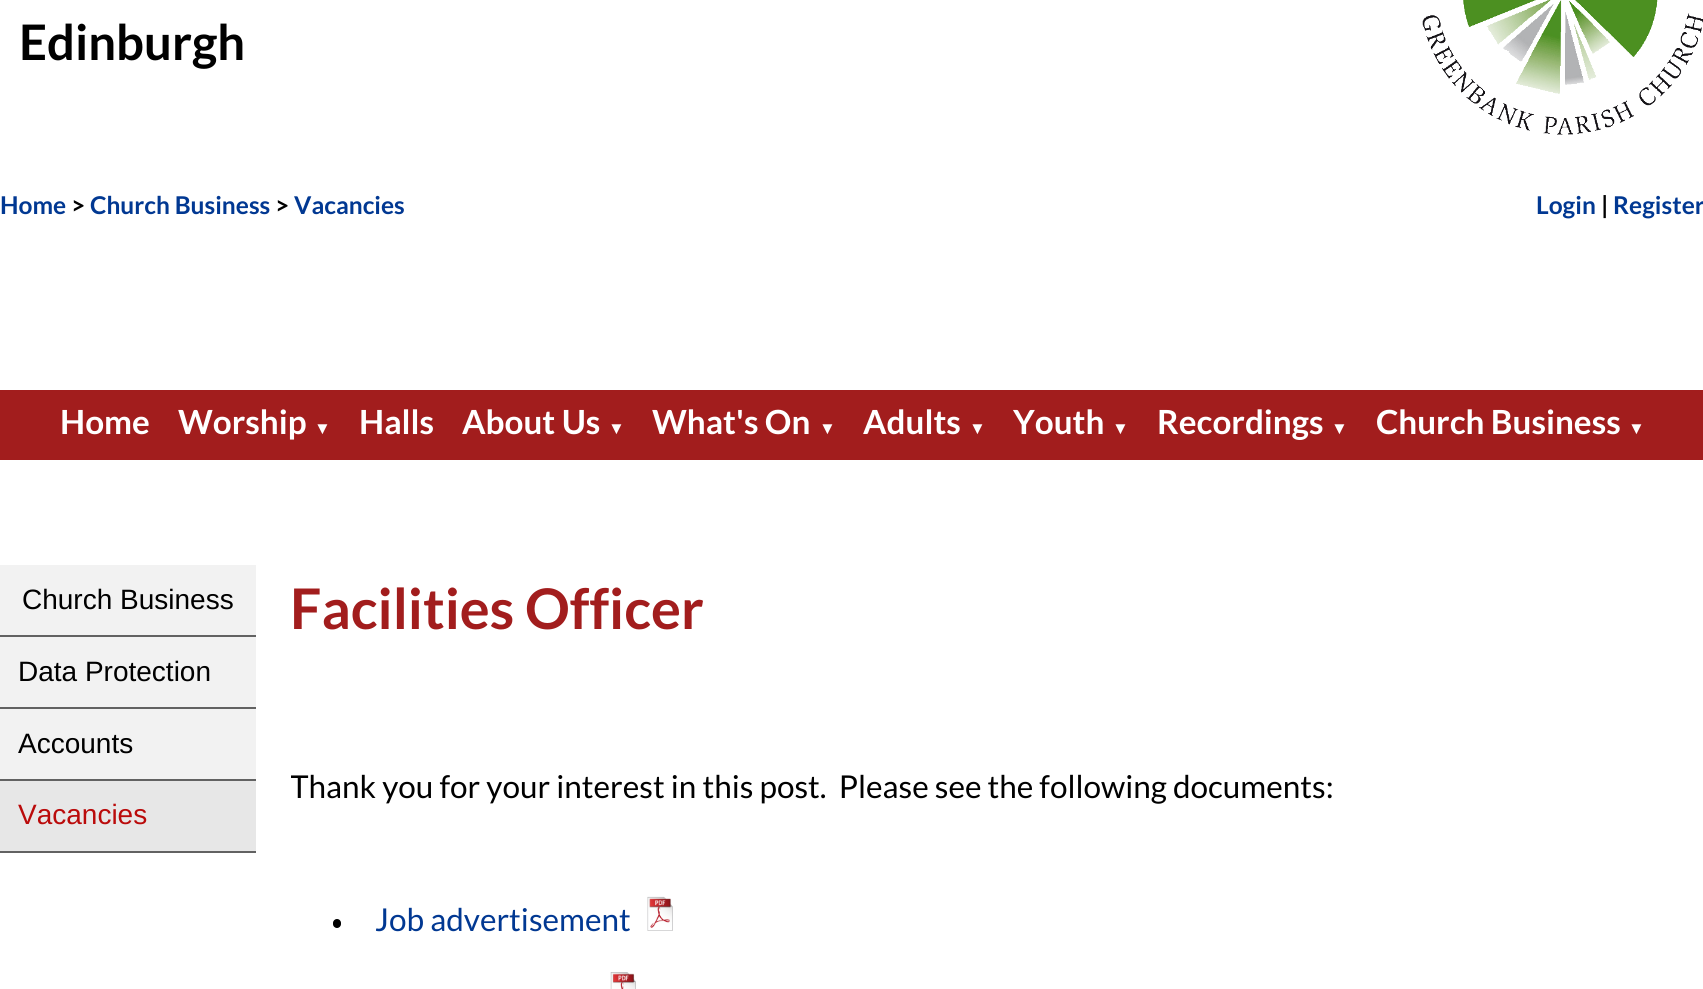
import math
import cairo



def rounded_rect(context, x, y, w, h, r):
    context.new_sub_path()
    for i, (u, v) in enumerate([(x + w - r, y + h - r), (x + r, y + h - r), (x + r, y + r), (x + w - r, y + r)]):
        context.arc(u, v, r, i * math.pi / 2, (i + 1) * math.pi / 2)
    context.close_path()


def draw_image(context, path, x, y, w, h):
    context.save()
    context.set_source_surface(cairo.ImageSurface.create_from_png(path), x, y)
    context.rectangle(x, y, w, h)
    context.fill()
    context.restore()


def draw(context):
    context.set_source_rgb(1, 1, 1)
    context.paint()
    draw_image(context, "images/1.png", 1422, 0, 281, 135)
    context.set_source_rgb(162 / 255, 29 / 255, 29 / 255)
    context.rectangle(0, 390, 1703, 70)
    context.fill()
    context.set_source_rgb(242 / 255, 242 / 255, 242 / 255)
    context.rectangle(0, 565, 256, 214)
    context.fill()
    context.set_source_rgb(98 / 255, 98 / 255, 98 / 255)
    context.rectangle(0, 635, 256, 2)
    context.fill()
    context.rectangle(0, 707, 256, 2)
    context.fill()
    context.rectangle(0, 779, 256, 2)
    context.fill()
    context.set_source_rgb(231 / 255, 231 / 255, 231 / 255)
    context.rectangle(0, 781, 256, 70)
    context.fill()
    context.set_source_rgb(98 / 255, 98 / 255, 98 / 255)
    context.rectangle(0, 851, 256, 2)
    context.fill()
    context.set_source_rgb(0, 0, 0)
    rounded_rect(context, 333, 919, 8, 9, 4)
    context.fill()
    draw_image(context, "images/2.png", 647, 896, 26, 35)
    draw_image(context, "images/3.png", 610, 972, 26, 17)
    context.select_font_face("Lato", cairo.FontSlant.NORMAL, cairo.FontWeight.BOLD)
    context.set_font_size(49)
    context.move_to(19, 60)
    context.show_text("Edinburgh")
    context.set_font_size(24.5)
    context.set_source_rgb(1 / 255, 56 / 255, 146 / 255)
    context.move_to(0, 214)
    context.show_text("Home")
    context.set_source_rgb(0, 0, 0)
    context.move_to(71, 214)
    context.show_text(">")
    context.set_source_rgb(1 / 255, 56 / 255, 146 / 255)
    context.move_to(90, 214)
    context.show_text("Church Business")
    context.set_source_rgb(0, 0, 0)
    context.move_to(275, 214)
    context.show_text(">")
    context.set_source_rgb(1 / 255, 56 / 255, 146 / 255)
    context.move_to(294, 214)
    context.show_text("Vacancies")
    context.move_to(1536, 214)
    context.show_text("Login")
    context.set_source_rgb(0, 0, 0)
    context.move_to(1601, 214)
    context.show_text("|")
    context.set_source_rgb(1 / 255, 56 / 255, 146 / 255)
    context.move_to(1613, 214)
    context.show_text("Register")
    context.set_font_size(33.25)
    context.set_source_rgb(1, 1, 1)
    context.move_to(60, 434)
    context.show_text("Home")
    context.move_to(178, 434)
    context.show_text("Worship")
    context.select_font_face("Liberation Serif", cairo.FontSlant.NORMAL, cairo.FontWeight.BOLD)
    context.set_font_size(17)
    context.move_to(314, 434)
    context.show_text("▼")
    context.select_font_face("Lato", cairo.FontSlant.NORMAL, cairo.FontWeight.BOLD)
    context.set_font_size(33.25)
    context.move_to(359, 434)
    context.show_text("Halls")
    context.move_to(462, 434)
    context.show_text("About Us")
    context.select_font_face("Liberation Serif", cairo.FontSlant.NORMAL, cairo.FontWeight.BOLD)
    context.set_font_size(17)
    context.move_to(608, 434)
    context.show_text("▼")
    context.select_font_face("Lato", cairo.FontSlant.NORMAL, cairo.FontWeight.BOLD)
    context.set_font_size(33.25)
    context.move_to(652, 434)
    context.show_text("What's On")
    context.select_font_face("Liberation Serif", cairo.FontSlant.NORMAL, cairo.FontWeight.BOLD)
    context.set_font_size(17)
    context.move_to(819, 434)
    context.show_text("▼")
    context.select_font_face("Lato", cairo.FontSlant.NORMAL, cairo.FontWeight.BOLD)
    context.set_font_size(33.25)
    context.move_to(863, 434)
    context.show_text("Adults")
    context.select_font_face("Liberation Serif", cairo.FontSlant.NORMAL, cairo.FontWeight.BOLD)
    context.set_font_size(17)
    context.move_to(969, 434)
    context.show_text("▼")
    context.select_font_face("Lato", cairo.FontSlant.NORMAL, cairo.FontWeight.BOLD)
    context.set_font_size(33.25)
    context.move_to(1013, 434)
    context.show_text("Youth")
    context.select_font_face("Liberation Serif", cairo.FontSlant.NORMAL, cairo.FontWeight.BOLD)
    context.set_font_size(17)
    context.move_to(1112, 434)
    context.show_text("▼")
    context.select_font_face("Lato", cairo.FontSlant.NORMAL, cairo.FontWeight.BOLD)
    context.set_font_size(33.25)
    context.move_to(1157, 434)
    context.show_text("Recordings")
    context.select_font_face("Liberation Serif", cairo.FontSlant.NORMAL, cairo.FontWeight.BOLD)
    context.set_font_size(17)
    context.move_to(1331, 434)
    context.show_text("▼")
    context.select_font_face("Lato", cairo.FontSlant.NORMAL, cairo.FontWeight.BOLD)
    context.set_font_size(33.25)
    context.move_to(1376, 434)
    context.show_text("Church Business")
    context.select_font_face("Liberation Serif", cairo.FontSlant.NORMAL, cairo.FontWeight.BOLD)
    context.set_font_size(17)
    context.move_to(1628, 434)
    context.show_text("▼")
    context.select_font_face("Liberation Sans")
    context.set_font_size(28)
    context.set_source_rgb(0, 0, 0)
    context.move_to(22, 609)
    context.show_text("Church Business")
    context.move_to(18, 681)
    context.show_text("Data Protection")
    context.move_to(18, 753)
    context.show_text("Accounts")
    context.set_source_rgb(186 / 255, 11 / 255, 11 / 255)
    context.move_to(18, 824)
    context.show_text("Vacancies")
    context.select_font_face("Lato", cairo.FontSlant.NORMAL, cairo.FontWeight.BOLD)
    context.set_font_size(56)
    context.set_source_rgb(162 / 255, 29 / 255, 29 / 255)
    context.move_to(290, 629)
    context.show_text("Facilities Officer")
    context.save()
    context.rectangle(291, 537, 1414, 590)
    context.clip()
    context.select_font_face("Lato")
    context.set_font_size(31.5)
    context.set_source_rgb(0, 0, 0)
    context.move_to(290, 798)
    context.show_text("Thank you for your interest in this post.  Please see the following documents:")
    context.restore()
    context.select_font_face("Lato")
    context.set_font_size(31.5)
    context.set_source_rgb(1 / 255, 56 / 255, 146 / 255)
    context.move_to(375, 931)
    context.show_text("Job advertisement")


surface = cairo.ImageSurface(cairo.Format.RGB24, 1703, 989)
context = cairo.Context(surface)
options = cairo.FontOptions()
options.set_hint_metrics(cairo.HintMetrics.OFF)
options.set_hint_style(cairo.HintStyle.NONE)
context.set_font_options(options)
context.set_miter_limit(4)
draw(context)
surface.write_to_png("out.png")
